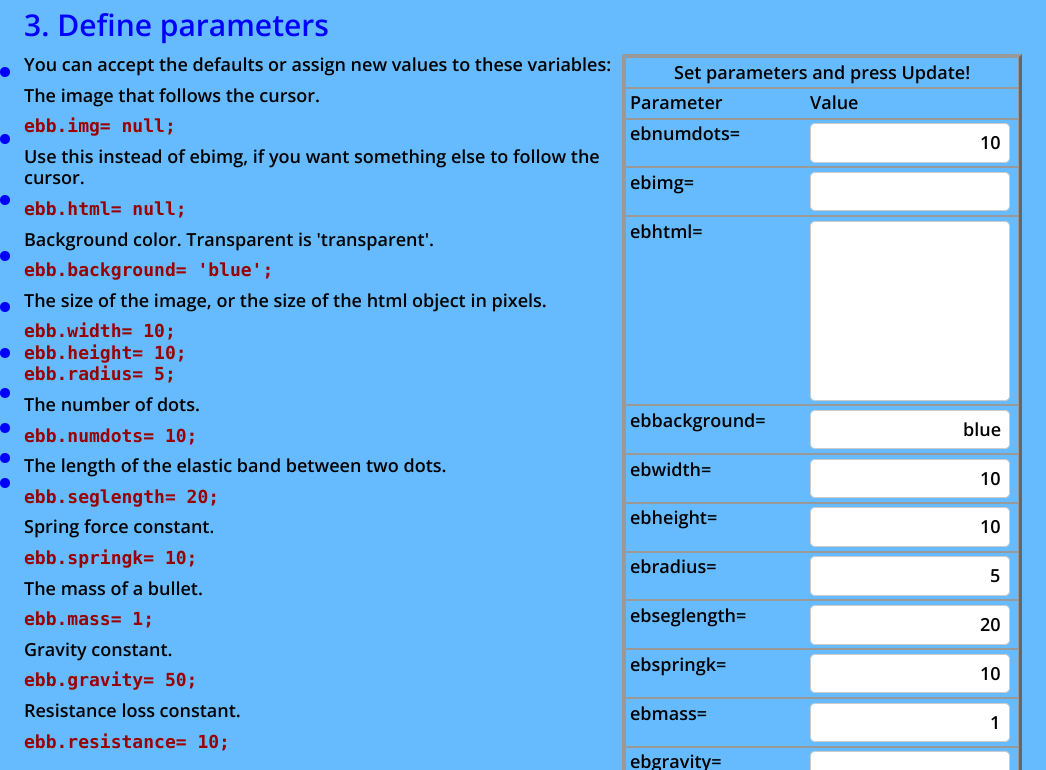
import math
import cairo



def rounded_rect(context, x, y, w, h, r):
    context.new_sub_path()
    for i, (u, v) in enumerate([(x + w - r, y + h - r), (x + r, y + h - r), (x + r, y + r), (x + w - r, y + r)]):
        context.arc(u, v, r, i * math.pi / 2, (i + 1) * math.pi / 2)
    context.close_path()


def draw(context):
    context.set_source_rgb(102 / 255, 187 / 255, 1)
    context.paint()
    context.set_source_rgb(0, 0, 1)
    context.arc(5, 72, 5, 0, 2 * math.pi)
    context.fill()
    context.set_source_rgb(153 / 255, 153 / 255, 153 / 255)
    context.new_path()
    context.move_to(622, 54)
    context.line_to(1022, 54)
    context.line_to(1019, 57)
    context.line_to(625, 57)
    context.close_path()
    context.fill()
    context.set_source_rgb(102 / 255, 102 / 255, 102 / 255)
    context.new_path()
    context.move_to(1022, 54)
    context.line_to(1022, 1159)
    context.line_to(1019, 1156)
    context.line_to(1019, 57)
    context.close_path()
    context.fill()
    context.set_source_rgb(153 / 255, 153 / 255, 153 / 255)
    context.new_path()
    context.move_to(622, 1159)
    context.line_to(622, 54)
    context.line_to(625, 57)
    context.line_to(625, 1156)
    context.close_path()
    context.fill()
    context.rectangle(625.5, 57.5, 393, 30)
    context.set_line_width(1)
    context.stroke()
    context.rectangle(625.5, 88.5, 393, 30)
    context.stroke()
    context.rectangle(625.5, 119.5, 393, 47)
    context.stroke()
    context.set_source_rgb(1, 1, 1)
    rounded_rect(context, 810.5, 123.5, 199, 39, 4.5)
    context.fill_preserve()
    context.set_source_rgb(204 / 255, 204 / 255, 204 / 255)
    context.stroke()
    context.rectangle(625.5, 167.5, 393, 48)
    context.set_source_rgb(153 / 255, 153 / 255, 153 / 255)
    context.stroke()
    context.set_source_rgb(1, 1, 1)
    rounded_rect(context, 810.5, 172.5, 199, 38, 4.5)
    context.fill_preserve()
    context.set_source_rgb(204 / 255, 204 / 255, 204 / 255)
    context.stroke()
    context.rectangle(625.5, 216.5, 393, 188)
    context.set_source_rgb(153 / 255, 153 / 255, 153 / 255)
    context.stroke()
    context.set_source_rgb(1, 1, 1)
    rounded_rect(context, 810.5, 221.5, 199, 179, 4.5)
    context.fill_preserve()
    context.set_source_rgb(204 / 255, 204 / 255, 204 / 255)
    context.stroke()
    context.rectangle(625.5, 405.5, 393, 48)
    context.set_source_rgb(153 / 255, 153 / 255, 153 / 255)
    context.stroke()
    context.set_source_rgb(1, 1, 1)
    rounded_rect(context, 810.5, 410.5, 199, 38, 4.5)
    context.fill_preserve()
    context.set_source_rgb(204 / 255, 204 / 255, 204 / 255)
    context.stroke()
    context.rectangle(625.5, 454.5, 393, 48)
    context.set_source_rgb(153 / 255, 153 / 255, 153 / 255)
    context.stroke()
    context.set_source_rgb(1, 1, 1)
    rounded_rect(context, 810.5, 459.5, 199, 38, 4.5)
    context.fill_preserve()
    context.set_source_rgb(204 / 255, 204 / 255, 204 / 255)
    context.stroke()
    context.rectangle(625.5, 503.5, 393, 48)
    context.set_source_rgb(153 / 255, 153 / 255, 153 / 255)
    context.stroke()
    context.set_source_rgb(1, 1, 1)
    rounded_rect(context, 810.5, 507.5, 199, 39, 4.5)
    context.fill_preserve()
    context.set_source_rgb(204 / 255, 204 / 255, 204 / 255)
    context.stroke()
    context.rectangle(625.5, 552.5, 393, 47)
    context.set_source_rgb(153 / 255, 153 / 255, 153 / 255)
    context.stroke()
    context.set_source_rgb(1, 1, 1)
    rounded_rect(context, 810.5, 556.5, 199, 39, 4.5)
    context.fill_preserve()
    context.set_source_rgb(204 / 255, 204 / 255, 204 / 255)
    context.stroke()
    context.rectangle(625.5, 600.5, 393, 48)
    context.set_source_rgb(153 / 255, 153 / 255, 153 / 255)
    context.stroke()
    context.set_source_rgb(1, 1, 1)
    rounded_rect(context, 810.5, 605.5, 199, 39, 4.5)
    context.fill_preserve()
    context.set_source_rgb(204 / 255, 204 / 255, 204 / 255)
    context.stroke()
    context.rectangle(625.5, 649.5, 393, 48)
    context.set_source_rgb(153 / 255, 153 / 255, 153 / 255)
    context.stroke()
    context.set_source_rgb(1, 1, 1)
    rounded_rect(context, 810.5, 654.5, 199, 38, 4.5)
    context.fill_preserve()
    context.set_source_rgb(204 / 255, 204 / 255, 204 / 255)
    context.stroke()
    context.rectangle(625.5, 698.5, 393, 48)
    context.set_source_rgb(153 / 255, 153 / 255, 153 / 255)
    context.stroke()
    context.set_source_rgb(1, 1, 1)
    rounded_rect(context, 810.5, 703.5, 199, 38, 4.5)
    context.fill_preserve()
    context.set_source_rgb(204 / 255, 204 / 255, 204 / 255)
    context.stroke()
    context.rectangle(625.5, 747.5, 393, 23)
    context.set_source_rgb(153 / 255, 153 / 255, 153 / 255)
    context.stroke()
    context.set_source_rgb(1, 1, 1)
    rounded_rect(context, 810.5, 751.5, 199, 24, 4.5)
    context.fill_preserve()
    context.set_source_rgb(204 / 255, 204 / 255, 204 / 255)
    context.stroke()
    context.set_source_rgb(0, 0, 1)
    context.arc(5, 139, 5, 0, 2 * math.pi)
    context.fill()
    context.arc(5, 200, 5, 0, 2 * math.pi)
    context.fill()
    context.arc(5, 256, 5, 0, 2 * math.pi)
    context.fill()
    context.arc(5, 307, 5, 0, 2 * math.pi)
    context.fill()
    context.arc(5, 353, 5, 0, 2 * math.pi)
    context.fill()
    context.arc(5, 393, 5, 0, 2 * math.pi)
    context.fill()
    context.arc(5, 428, 5, 0, 2 * math.pi)
    context.fill()
    context.arc(5, 458, 5, 0, 2 * math.pi)
    context.fill()
    context.arc(5, 483, 5, 0, 2 * math.pi)
    context.fill()
    context.select_font_face("Open Sans SemiBold")
    context.set_font_size(30)
    context.move_to(24, 36)
    context.show_text("3. Define parameters")
    context.set_font_size(18)
    context.set_source_rgb(0, 0, 0)
    context.move_to(24, 71)
    context.show_text("You can accept the defaults or assign new values to these variables:")
    context.move_to(674, 79)
    context.show_text("Set parameters and press Update!")
    context.move_to(630, 109)
    context.show_text("Parameter")
    context.move_to(810, 109)
    context.show_text("Value")
    context.move_to(630, 140)
    context.show_text("ebnumdots=")
    context.move_to(980, 149)
    context.show_text("10")
    context.move_to(630, 189)
    context.show_text("ebimg=")
    context.move_to(630, 238)
    context.show_text("ebhtml=")
    context.move_to(630, 427)
    context.show_text("ebbackground=")
    context.move_to(963, 436)
    context.show_text("blue")
    context.move_to(630, 476)
    context.show_text("ebwidth=")
    context.move_to(980, 485)
    context.show_text("10")
    context.move_to(630, 524)
    context.show_text("ebheight=")
    context.move_to(980, 533)
    context.show_text("10")
    context.move_to(630, 573)
    context.show_text("ebradius=")
    context.move_to(990, 582)
    context.show_text("5")
    context.move_to(630, 622)
    context.show_text("ebseglength=")
    context.move_to(980, 631)
    context.show_text("20")
    context.move_to(630, 671)
    context.show_text("ebspringk=")
    context.move_to(980, 680)
    context.show_text("10")
    context.move_to(630, 720)
    context.show_text("ebmass=")
    context.move_to(990, 729)
    context.show_text("1")
    context.move_to(630, 768)
    context.show_text("ebgravity=")
    context.move_to(24, 102)
    context.show_text("The image that follows the cursor.")
    context.select_font_face("DejaVu Sans Mono", cairo.FontSlant.NORMAL, cairo.FontWeight.BOLD)
    context.set_source_rgb(153 / 255, 0, 0)
    context.move_to(24, 132)
    context.show_text("ebb.img= null;")
    context.select_font_face("Open Sans SemiBold")
    context.set_source_rgb(0, 0, 0)
    context.move_to(24, 163)
    context.show_text("Use this instead of ebimg, if you want something else to follow the")
    context.move_to(24, 184)
    context.show_text("cursor.")
    context.select_font_face("DejaVu Sans Mono", cairo.FontSlant.NORMAL, cairo.FontWeight.BOLD)
    context.set_source_rgb(153 / 255, 0, 0)
    context.move_to(24, 215)
    context.show_text("ebb.html= null;")
    context.select_font_face("Open Sans SemiBold")
    context.set_source_rgb(0, 0, 0)
    context.move_to(24, 246)
    context.show_text("Background color. Transparent is 'transparent'.")
    context.select_font_face("DejaVu Sans Mono", cairo.FontSlant.NORMAL, cairo.FontWeight.BOLD)
    context.set_source_rgb(153 / 255, 0, 0)
    context.move_to(24, 276)
    context.show_text("ebb.background= 'blue';")
    context.select_font_face("Open Sans SemiBold")
    context.set_source_rgb(0, 0, 0)
    context.move_to(24, 307)
    context.show_text("The size of the image, or the size of the html object in pixels.")
    context.select_font_face("DejaVu Sans Mono", cairo.FontSlant.NORMAL, cairo.FontWeight.BOLD)
    context.set_source_rgb(153 / 255, 0, 0)
    context.move_to(24, 337)
    context.show_text("ebb.width= 10;")
    context.move_to(24, 359)
    context.show_text("ebb.height= 10;")
    context.move_to(24, 380)
    context.show_text("ebb.radius= 5;")
    context.select_font_face("Open Sans SemiBold")
    context.set_source_rgb(0, 0, 0)
    context.move_to(24, 411)
    context.show_text("The number of dots.")
    context.select_font_face("DejaVu Sans Mono", cairo.FontSlant.NORMAL, cairo.FontWeight.BOLD)
    context.set_source_rgb(153 / 255, 0, 0)
    context.move_to(24, 442)
    context.show_text("ebb.numdots= 10;")
    context.select_font_face("Open Sans SemiBold")
    context.set_source_rgb(0, 0, 0)
    context.move_to(24, 472)
    context.show_text("The length of the elastic band between two dots.")
    context.select_font_face("DejaVu Sans Mono", cairo.FontSlant.NORMAL, cairo.FontWeight.BOLD)
    context.set_source_rgb(153 / 255, 0, 0)
    context.move_to(24, 503)
    context.show_text("ebb.seglength= 20;")
    context.select_font_face("Open Sans SemiBold")
    context.set_source_rgb(0, 0, 0)
    context.move_to(24, 533)
    context.show_text("Spring force constant.")
    context.select_font_face("DejaVu Sans Mono", cairo.FontSlant.NORMAL, cairo.FontWeight.BOLD)
    context.set_source_rgb(153 / 255, 0, 0)
    context.move_to(24, 564)
    context.show_text("ebb.springk= 10;")
    context.select_font_face("Open Sans SemiBold")
    context.set_source_rgb(0, 0, 0)
    context.move_to(24, 595)
    context.show_text("The mass of a bullet.")
    context.select_font_face("DejaVu Sans Mono", cairo.FontSlant.NORMAL, cairo.FontWeight.BOLD)
    context.set_source_rgb(153 / 255, 0, 0)
    context.move_to(24, 625)
    context.show_text("ebb.mass= 1;")
    context.select_font_face("Open Sans SemiBold")
    context.set_source_rgb(0, 0, 0)
    context.move_to(24, 656)
    context.show_text("Gravity constant.")
    context.select_font_face("DejaVu Sans Mono", cairo.FontSlant.NORMAL, cairo.FontWeight.BOLD)
    context.set_source_rgb(153 / 255, 0, 0)
    context.move_to(24, 686)
    context.show_text("ebb.gravity= 50;")
    context.select_font_face("Open Sans SemiBold")
    context.set_source_rgb(0, 0, 0)
    context.move_to(24, 717)
    context.show_text("Resistance loss constant.")
    context.select_font_face("DejaVu Sans Mono", cairo.FontSlant.NORMAL, cairo.FontWeight.BOLD)
    context.set_source_rgb(153 / 255, 0, 0)
    context.move_to(24, 748)
    context.show_text("ebb.resistance= 10;")


surface = cairo.ImageSurface(cairo.Format.RGB24, 1046, 770)
context = cairo.Context(surface)
options = cairo.FontOptions()
options.set_hint_metrics(cairo.HintMetrics.OFF)
options.set_hint_style(cairo.HintStyle.NONE)
context.set_font_options(options)
context.set_miter_limit(4)
draw(context)
surface.write_to_png("out.png")
